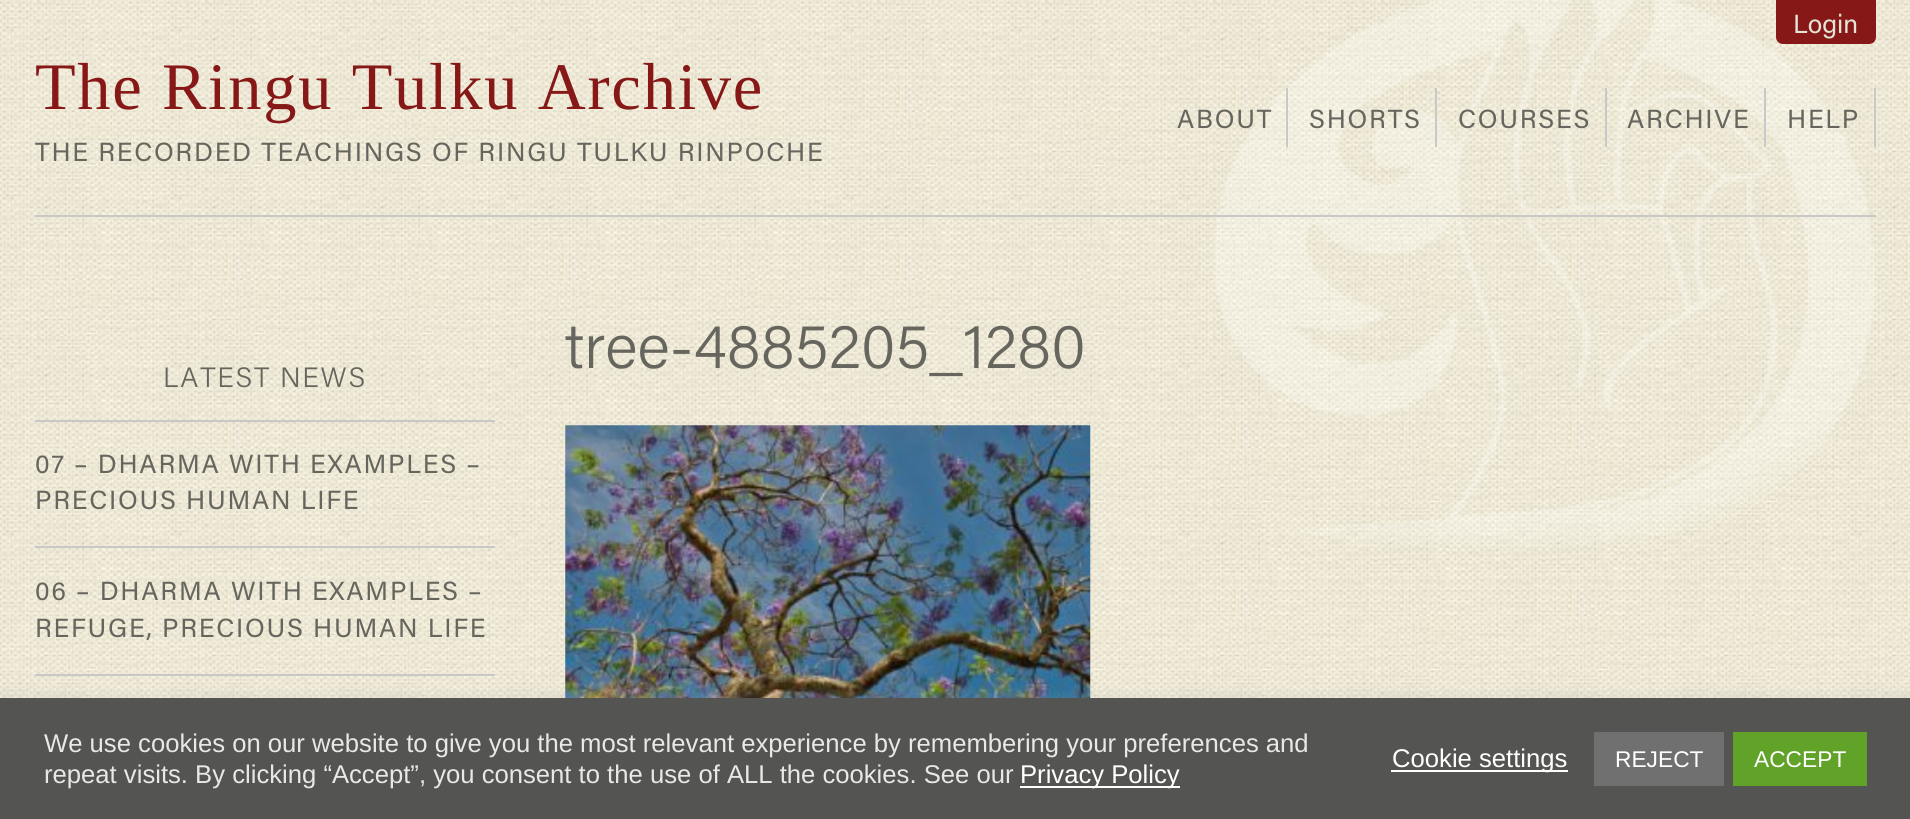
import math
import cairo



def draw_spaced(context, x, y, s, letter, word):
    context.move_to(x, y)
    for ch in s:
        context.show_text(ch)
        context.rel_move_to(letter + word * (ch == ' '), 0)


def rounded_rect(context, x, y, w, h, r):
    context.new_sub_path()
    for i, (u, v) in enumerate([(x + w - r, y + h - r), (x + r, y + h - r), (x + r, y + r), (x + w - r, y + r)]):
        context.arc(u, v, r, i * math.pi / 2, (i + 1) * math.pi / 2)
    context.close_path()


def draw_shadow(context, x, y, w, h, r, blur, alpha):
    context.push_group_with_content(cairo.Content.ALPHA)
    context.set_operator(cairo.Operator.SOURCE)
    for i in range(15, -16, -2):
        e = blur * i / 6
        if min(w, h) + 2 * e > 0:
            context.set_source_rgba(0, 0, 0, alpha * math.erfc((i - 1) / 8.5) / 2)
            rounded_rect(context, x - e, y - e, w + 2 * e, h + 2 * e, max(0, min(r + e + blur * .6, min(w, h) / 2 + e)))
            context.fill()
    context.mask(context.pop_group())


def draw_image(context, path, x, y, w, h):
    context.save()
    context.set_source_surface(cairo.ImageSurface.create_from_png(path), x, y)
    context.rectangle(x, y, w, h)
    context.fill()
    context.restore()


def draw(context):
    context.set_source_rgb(1, 1, 1)
    context.paint()
    draw_image(context, "images/1.png", 0, 0, 1910, 698)
    draw_image(context, "images/2.png", 1214, 0, 662, 547)
    context.set_source_rgb(200 / 255, 200 / 255, 200 / 255)
    context.rectangle(35, 215, 1841, 2)
    context.fill()
    context.set_source_rgb(134 / 255, 25 / 255, 24 / 255)
    context.new_path()
    context.move_to(1776, 0)
    context.line_to(1876, 0)
    context.line_to(1876, 37)
    context.curve_to(1876, 41, 1873, 44, 1869, 44)
    context.line_to(1783, 44)
    context.curve_to(1779, 44, 1776, 41, 1776, 37)
    context.close_path()
    context.fill()
    context.set_source_rgb(200 / 255, 200 / 255, 200 / 255)
    context.rectangle(1286, 88, 2, 59)
    context.fill()
    context.rectangle(1435, 88, 2, 59)
    context.fill()
    context.rectangle(1605, 88, 2, 59)
    context.fill()
    context.rectangle(1764, 88, 2, 59)
    context.fill()
    context.rectangle(1874, 88, 2, 59)
    context.fill()
    draw_image(context, "images/3.png", 565, 425, 526, 273)
    context.rectangle(35, 420, 460, 2)
    context.fill()
    context.rectangle(35, 546, 460, 2)
    context.fill()
    context.rectangle(35, 674, 460, 2)
    context.fill()
    context.set_source_rgb(172 / 255, 171 / 255, 171 / 255)
    draw_shadow(context, 0, 697, 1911, 120, 0, 9, 0.3)
    context.set_source_rgb(84 / 255, 84 / 255, 82 / 255)
    context.rectangle(0, 698, 1910, 121)
    context.fill()
    context.set_source_rgb(1, 1, 1)
    context.rectangle(1020, 786, 160, 2)
    context.fill()
    context.rectangle(1391, 770, 177, 2)
    context.fill()
    context.set_source_rgb(112 / 255, 112 / 255, 112 / 255)
    context.rectangle(1594, 732, 130, 54)
    context.fill()
    context.set_source_rgb(97 / 255, 162 / 255, 41 / 255)
    context.rectangle(1733, 732, 134, 54)
    context.fill()
    context.select_font_face("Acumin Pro")
    context.set_font_size(26.25)
    context.set_source_rgb(229 / 255, 229 / 255, 215 / 255)
    context.move_to(1793, 33)
    context.show_text("Login")
    context.select_font_face("Liberation Serif")
    context.set_font_size(66.5)
    context.set_source_rgb(134 / 255, 25 / 255, 24 / 255)
    draw_spaced(context, 35, 109, "The Ringu Tulku Archive", 1.75, 0)
    context.select_font_face("Acumin Pro")
    context.set_font_size(26.25)
    context.set_source_rgb(102 / 255, 102 / 255, 94 / 255)
    draw_spaced(context, 35, 161, "THE RECORDED TEACHINGS OF RINGU TULKU RINPOCHE", 1.75, 0)
    draw_spaced(context, 1177, 128, "ABOUT", 1.75, 0)
    draw_spaced(context, 1309, 128, "SHORTS", 1.75, 0)
    draw_spaced(context, 1458, 128, "COURSES", 1.75, 0)
    draw_spaced(context, 1627, 128, "ARCHIVE", 1.75, 0)
    draw_spaced(context, 1787, 128, "HELP", 1.75, 0)
    context.select_font_face("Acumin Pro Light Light")
    context.set_font_size(63)
    context.move_to(565, 368)
    context.show_text("tree-4885205_1280")
    context.set_font_size(28)
    draw_spaced(context, 163, 387, "LATEST NEWS", 1.75, 0)
    context.select_font_face("Acumin Pro")
    context.set_font_size(26.25)
    draw_spaced(context, 35, 473, "07 – DHARMA WITH EXAMPLES –", 1.75, 0)
    draw_spaced(context, 35, 509, "PRECIOUS HUMAN LIFE", 1.75, 0)
    draw_spaced(context, 35, 600, "06 – DHARMA WITH EXAMPLES –", 1.75, 0)
    draw_spaced(context, 35, 637, "REFUGE, PRECIOUS HUMAN LIFE", 1.75, 0)
    context.select_font_face("Liberation Sans")
    context.set_font_size(25.65)
    context.set_source_rgb(232 / 255, 232 / 255, 232 / 255)
    context.move_to(44, 752)
    context.show_text("We use cookies on our website to give you the most relevant experience by remembering your preferences and")
    context.move_to(44, 783)
    context.show_text("repeat visits. By clicking “Accept”, you consent to the use of ALL the cookies. See our")
    context.set_source_rgb(1, 1, 1)
    context.move_to(1020, 783)
    context.show_text("Privacy Policy")
    context.move_to(1392, 767)
    context.show_text("Cookie settings")
    context.set_font_size(22.75)
    context.move_to(1615, 767)
    context.show_text("REJECT")
    context.move_to(1754, 767)
    context.show_text("ACCEPT")


surface = cairo.ImageSurface(cairo.Format.RGB24, 1910, 819)
context = cairo.Context(surface)
options = cairo.FontOptions()
options.set_hint_metrics(cairo.HintMetrics.OFF)
options.set_hint_style(cairo.HintStyle.NONE)
context.set_font_options(options)
context.set_miter_limit(4)
draw(context)
surface.write_to_png("out.png")
